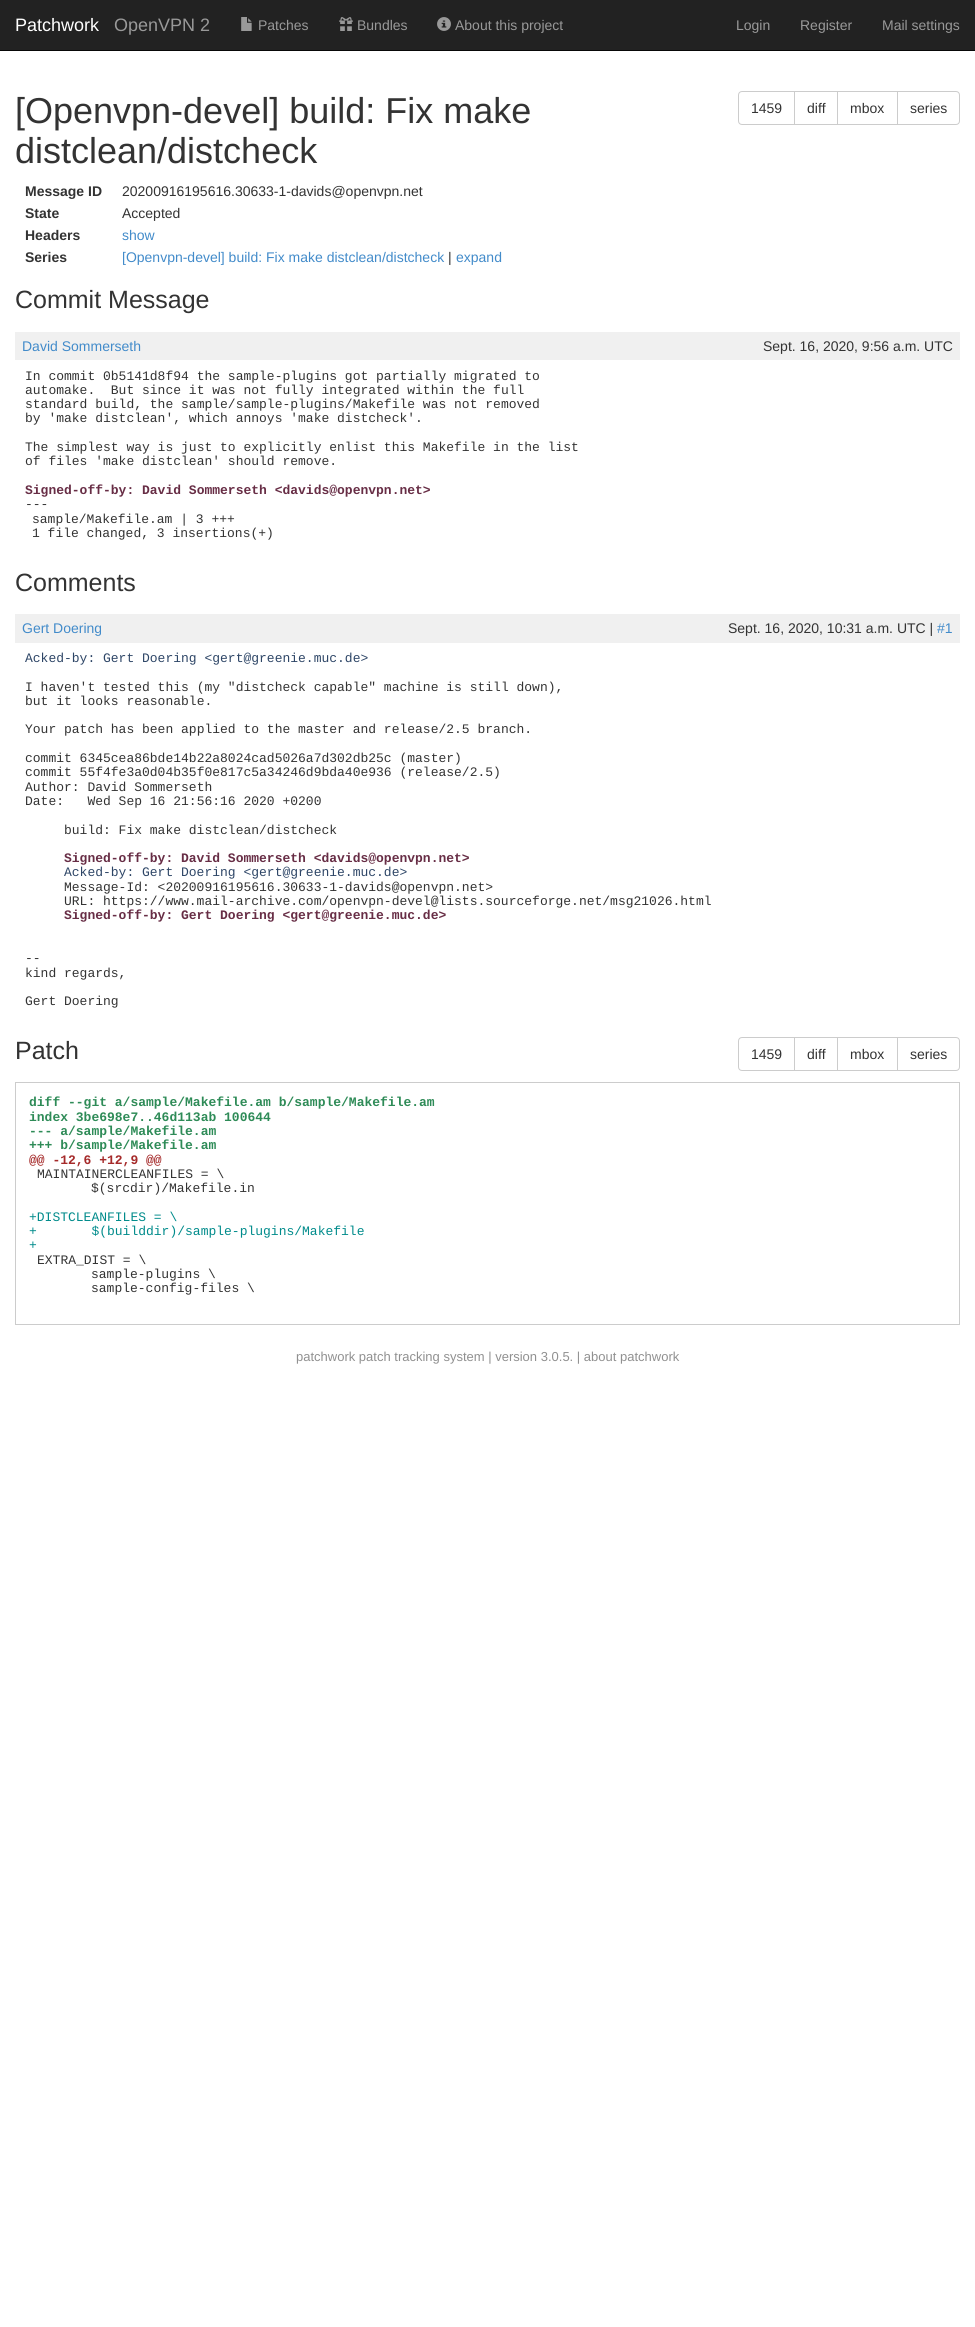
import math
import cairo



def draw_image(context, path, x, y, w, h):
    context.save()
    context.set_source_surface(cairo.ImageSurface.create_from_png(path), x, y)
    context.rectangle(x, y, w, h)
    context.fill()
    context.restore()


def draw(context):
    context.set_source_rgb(1, 1, 1)
    context.paint()
    context.set_source_rgb(34 / 255, 34 / 255, 34 / 255)
    context.rectangle(0, 0, 975, 50)
    context.fill()
    context.set_source_rgb(8 / 255, 8 / 255, 8 / 255)
    context.rectangle(0, 50, 975, 1)
    context.fill()
    draw_image(context, "images/1.png", 241, 17, 11, 14)
    draw_image(context, "images/2.png", 339, 17, 14, 14)
    draw_image(context, "images/3.png", 437, 17, 14, 14)
    context.new_path()
    context.move_to(742, 91.5)
    context.line_to(794.5, 91.5)
    context.line_to(794.5, 124.5)
    context.line_to(742, 124.5)
    context.curve_to(740, 124.5, 738.5, 123, 738.5, 121)
    context.line_to(738.5, 95)
    context.curve_to(738.5, 93, 740, 91.5, 742, 91.5)
    context.close_path()
    context.set_source_rgb(204 / 255, 204 / 255, 204 / 255)
    context.set_line_width(1)
    context.stroke()
    context.rectangle(794.5, 91.5, 43, 33)
    context.stroke()
    context.rectangle(837.5, 91.5, 60, 33)
    context.stroke()
    context.set_source_rgb(1, 1, 1)
    context.new_path()
    context.move_to(897.5, 91.5)
    context.line_to(956, 91.5)
    context.curve_to(958, 91.5, 959.5, 93, 959.5, 95)
    context.line_to(959.5, 121)
    context.curve_to(959.5, 123, 958, 124.5, 956, 124.5)
    context.line_to(897.5, 124.5)
    context.close_path()
    context.fill_preserve()
    context.set_source_rgb(204 / 255, 204 / 255, 204 / 255)
    context.stroke()
    context.set_source_rgb(240 / 255, 240 / 255, 240 / 255)
    context.rectangle(15, 332, 945, 28)
    context.fill()
    context.rectangle(15, 614, 945, 29)
    context.fill()
    context.new_path()
    context.move_to(742, 1037.5)
    context.line_to(794.5, 1037.5)
    context.line_to(794.5, 1070.5)
    context.line_to(742, 1070.5)
    context.curve_to(740, 1070.5, 738.5, 1069, 738.5, 1067)
    context.line_to(738.5, 1041)
    context.curve_to(738.5, 1039, 740, 1037.5, 742, 1037.5)
    context.close_path()
    context.set_source_rgb(204 / 255, 204 / 255, 204 / 255)
    context.stroke()
    context.rectangle(794.5, 1037.5, 43, 33)
    context.stroke()
    context.rectangle(837.5, 1037.5, 60, 33)
    context.stroke()
    context.set_source_rgb(1, 1, 1)
    context.new_path()
    context.move_to(897.5, 1037.5)
    context.line_to(956, 1037.5)
    context.curve_to(958, 1037.5, 959.5, 1039, 959.5, 1041)
    context.line_to(959.5, 1067)
    context.curve_to(959.5, 1069, 958, 1070.5, 956, 1070.5)
    context.line_to(897.5, 1070.5)
    context.close_path()
    context.fill_preserve()
    context.set_source_rgb(204 / 255, 204 / 255, 204 / 255)
    context.stroke()
    context.rectangle(15.5, 1082.5, 944, 242)
    context.stroke()
    context.select_font_face("Liberation Sans")
    context.set_font_size(18)
    context.set_source_rgb(1, 1, 1)
    context.move_to(15, 31)
    context.show_text("Patchwork")
    context.set_source_rgb(153 / 255, 153 / 255, 153 / 255)
    context.move_to(114, 31)
    context.show_text("OpenVPN 2")
    context.set_font_size(14)
    context.move_to(258, 30)
    context.show_text("Patches")
    context.move_to(357, 30)
    context.show_text("Bundles")
    context.move_to(455, 30)
    context.show_text("About this project")
    context.move_to(736, 30)
    context.show_text("Login")
    context.move_to(800, 30)
    context.show_text("Register")
    context.move_to(882, 30)
    context.show_text("Mail settings")
    context.set_font_size(36)
    context.set_source_rgb(51 / 255, 51 / 255, 51 / 255)
    context.move_to(15, 123)
    context.show_text("[Openvpn-devel] build: Fix make")
    context.move_to(15, 163)
    context.show_text("distclean/distcheck")
    context.set_font_size(14)
    context.move_to(751, 113)
    context.show_text("1459")
    context.move_to(807, 113)
    context.show_text("diff")
    context.move_to(850, 113)
    context.show_text("mbox")
    context.move_to(910, 113)
    context.show_text("series")
    context.select_font_face("Liberation Sans", cairo.FontSlant.NORMAL, cairo.FontWeight.BOLD)
    context.move_to(25, 196)
    context.show_text("Message ID")
    context.select_font_face("Liberation Sans")
    context.move_to(122, 196)
    context.show_text("20200916195616.30633-1-davids@openvpn.net")
    context.select_font_face("Liberation Sans", cairo.FontSlant.NORMAL, cairo.FontWeight.BOLD)
    context.move_to(25, 218)
    context.show_text("State")
    context.select_font_face("Liberation Sans")
    context.move_to(122, 218)
    context.show_text("Accepted")
    context.select_font_face("Liberation Sans", cairo.FontSlant.NORMAL, cairo.FontWeight.BOLD)
    context.move_to(25, 240)
    context.show_text("Headers")
    context.select_font_face("Liberation Sans")
    context.set_source_rgb(66 / 255, 139 / 255, 202 / 255)
    context.move_to(122, 240)
    context.show_text("show")
    context.select_font_face("Liberation Sans", cairo.FontSlant.NORMAL, cairo.FontWeight.BOLD)
    context.set_source_rgb(51 / 255, 51 / 255, 51 / 255)
    context.move_to(25, 262)
    context.show_text("Series")
    context.select_font_face("Liberation Sans")
    context.set_source_rgb(66 / 255, 139 / 255, 202 / 255)
    context.move_to(122, 262)
    context.show_text("[Openvpn-devel] build: Fix make distclean/distcheck")
    context.set_source_rgb(51 / 255, 51 / 255, 51 / 255)
    context.move_to(448, 262)
    context.show_text("|")
    context.set_source_rgb(66 / 255, 139 / 255, 202 / 255)
    context.move_to(456, 262)
    context.show_text("expand")
    context.set_font_size(25)
    context.set_source_rgb(51 / 255, 51 / 255, 51 / 255)
    context.move_to(15, 308)
    context.show_text("Commit Message")
    context.set_font_size(14)
    context.set_source_rgb(66 / 255, 139 / 255, 202 / 255)
    context.move_to(22, 351)
    context.show_text("David Sommerseth")
    context.set_source_rgb(51 / 255, 51 / 255, 51 / 255)
    context.move_to(763, 351)
    context.show_text("Sept. 16, 2020, 9:56 a.m. UTC")
    context.select_font_face("Liberation Mono")
    context.set_font_size(13)
    context.move_to(25, 380)
    context.show_text("In commit 0b5141d8f94 the sample-plugins got partially migrated to")
    context.move_to(25, 394)
    context.show_text("automake.  But since it was not fully integrated within the full")
    context.move_to(25, 408)
    context.show_text("standard build, the sample/sample-plugins/Makefile was not removed")
    context.move_to(25, 422)
    context.show_text("by 'make distclean', which annoys 'make distcheck'.")
    context.move_to(25, 451)
    context.show_text("The simplest way is just to explicitly enlist this Makefile in the list")
    context.move_to(25, 465)
    context.show_text("of files 'make distclean' should remove.")
    context.select_font_face("Liberation Mono", cairo.FontSlant.NORMAL, cairo.FontWeight.BOLD)
    context.set_source_rgb(103 / 255, 45 / 255, 69 / 255)
    context.move_to(25, 494)
    context.show_text("Signed-off-by: David Sommerseth <davids@openvpn.net>")
    context.select_font_face("Liberation Mono")
    context.set_source_rgb(51 / 255, 51 / 255, 51 / 255)
    context.move_to(25, 508)
    context.show_text("---")
    context.move_to(32, 523)
    context.show_text("sample/Makefile.am | 3 +++")
    context.move_to(32, 537)
    context.show_text("1 file changed, 3 insertions(+)")
    context.select_font_face("Liberation Sans")
    context.set_font_size(25)
    context.move_to(15, 591)
    context.show_text("Comments")
    context.set_font_size(14)
    context.set_source_rgb(66 / 255, 139 / 255, 202 / 255)
    context.move_to(22, 633)
    context.show_text("Gert Doering")
    context.set_source_rgb(51 / 255, 51 / 255, 51 / 255)
    context.move_to(728, 633)
    context.show_text("Sept. 16, 2020, 10:31 a.m. UTC |")
    context.set_source_rgb(66 / 255, 139 / 255, 202 / 255)
    context.move_to(937, 633)
    context.show_text("#1")
    context.select_font_face("Liberation Mono")
    context.set_font_size(13)
    context.set_source_rgb(45 / 255, 69 / 255, 102 / 255)
    context.move_to(25, 662)
    context.show_text("Acked-by: Gert Doering <gert@greenie.muc.de>")
    context.set_source_rgb(51 / 255, 51 / 255, 51 / 255)
    context.move_to(25, 691)
    context.show_text("I haven't tested this (my \"distcheck capable\" machine is still down),")
    context.move_to(25, 705)
    context.show_text("but it looks reasonable.")
    context.move_to(25, 733)
    context.show_text("Your patch has been applied to the master and release/2.5 branch.")
    context.move_to(25, 762)
    context.show_text("commit 6345cea86bde14b22a8024cad5026a7d302db25c (master)")
    context.move_to(25, 776)
    context.show_text("commit 55f4fe3a0d04b35f0e817c5a34246d9bda40e936 (release/2.5)")
    context.move_to(25, 791)
    context.show_text("Author: David Sommerseth")
    context.move_to(25, 805)
    context.show_text("Date:   Wed Sep 16 21:56:16 2020 +0200")
    context.move_to(64, 834)
    context.show_text("build: Fix make distclean/distcheck")
    context.select_font_face("Liberation Mono", cairo.FontSlant.NORMAL, cairo.FontWeight.BOLD)
    context.set_source_rgb(103 / 255, 45 / 255, 69 / 255)
    context.move_to(64, 862)
    context.show_text("Signed-off-by: David Sommerseth <davids@openvpn.net>")
    context.select_font_face("Liberation Mono")
    context.set_source_rgb(45 / 255, 69 / 255, 102 / 255)
    context.move_to(64, 876)
    context.show_text("Acked-by: Gert Doering <gert@greenie.muc.de>")
    context.set_source_rgb(51 / 255, 51 / 255, 51 / 255)
    context.move_to(64, 891)
    context.show_text("Message-Id: <20200916195616.30633-1-davids@openvpn.net>")
    context.move_to(64, 905)
    context.show_text("URL: https://www.mail-archive.com/openvpn-devel@lists.sourceforge.net/msg21026.html")
    context.select_font_face("Liberation Mono", cairo.FontSlant.NORMAL, cairo.FontWeight.BOLD)
    context.set_source_rgb(103 / 255, 45 / 255, 69 / 255)
    context.move_to(64, 919)
    context.show_text("Signed-off-by: Gert Doering <gert@greenie.muc.de>")
    context.select_font_face("Liberation Mono")
    context.set_source_rgb(51 / 255, 51 / 255, 51 / 255)
    context.move_to(25, 962)
    context.show_text("--")
    context.move_to(25, 977)
    context.show_text("kind regards,")
    context.move_to(25, 1005)
    context.show_text("Gert Doering")
    context.select_font_face("Liberation Sans")
    context.set_font_size(25)
    context.move_to(15, 1059)
    context.show_text("Patch")
    context.set_font_size(14)
    context.move_to(751, 1059)
    context.show_text("1459")
    context.move_to(807, 1059)
    context.show_text("diff")
    context.move_to(850, 1059)
    context.show_text("mbox")
    context.move_to(910, 1059)
    context.show_text("series")
    context.select_font_face("Liberation Mono", cairo.FontSlant.NORMAL, cairo.FontWeight.BOLD)
    context.set_font_size(13)
    context.set_source_rgb(46 / 255, 139 / 255, 87 / 255)
    context.move_to(29, 1106)
    context.show_text("diff --git a/sample/Makefile.am b/sample/Makefile.am")
    context.move_to(29, 1121)
    context.show_text("index 3be698e7..46d113ab 100644")
    context.move_to(29, 1135)
    context.show_text("--- a/sample/Makefile.am")
    context.move_to(29, 1149)
    context.show_text("+++ b/sample/Makefile.am")
    context.set_source_rgb(165 / 255, 42 / 255, 42 / 255)
    context.move_to(29, 1164)
    context.show_text("@@ -12,6 +12,9 @@")
    context.select_font_face("Liberation Mono")
    context.set_source_rgb(51 / 255, 51 / 255, 51 / 255)
    context.move_to(37, 1178)
    context.show_text("MAINTAINERCLEANFILES = \\")
    context.move_to(91, 1192)
    context.show_text("$(srcdir)/Makefile.in")
    context.set_source_rgb(0, 139 / 255, 139 / 255)
    context.move_to(29, 1221)
    context.show_text("+DISTCLEANFILES = \\")
    context.move_to(29, 1235)
    context.show_text("+       $(builddir)/sample-plugins/Makefile")
    context.move_to(29, 1249)
    context.show_text("+")
    context.set_source_rgb(51 / 255, 51 / 255, 51 / 255)
    context.move_to(37, 1264)
    context.show_text("EXTRA_DIST = \\")
    context.move_to(91, 1278)
    context.show_text("sample-plugins \\")
    context.move_to(91, 1292)
    context.show_text("sample-config-files \\")
    context.select_font_face("Liberation Sans")
    context.set_source_rgb(144 / 255, 144 / 255, 144 / 255)
    context.move_to(296, 1361)
    context.show_text("patchwork patch tracking system | version 3.0.5. | about patchwork")


surface = cairo.ImageSurface(cairo.Format.RGB24, 975, 2327)
context = cairo.Context(surface)
options = cairo.FontOptions()
options.set_hint_metrics(cairo.HintMetrics.OFF)
options.set_hint_style(cairo.HintStyle.NONE)
context.set_font_options(options)
context.set_miter_limit(4)
draw(context)
surface.write_to_png("out.png")
